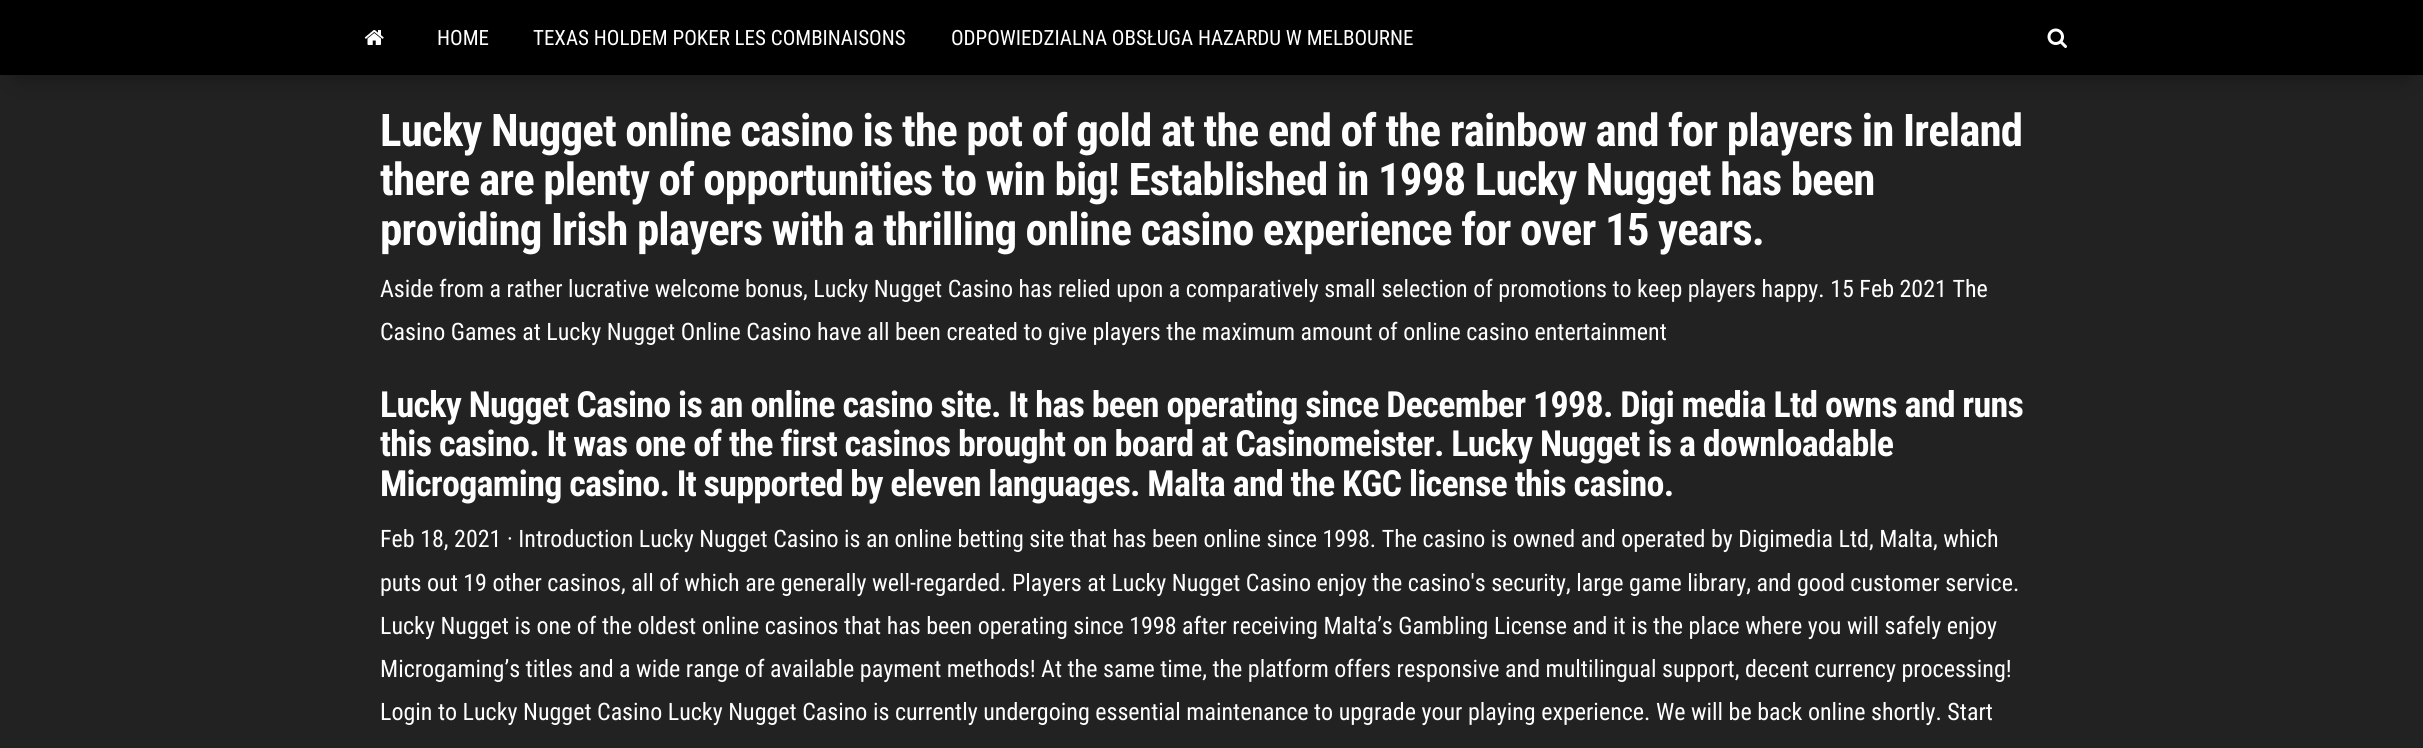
import math
import cairo



def draw_spaced(context, x, y, s, letter, word):
    context.move_to(x, y)
    for ch in s:
        context.show_text(ch)
        context.rel_move_to(letter + word * (ch == ' '), 0)


def rounded_rect(context, x, y, w, h, r):
    context.new_sub_path()
    for i, (u, v) in enumerate([(x + w - r, y + h - r), (x + r, y + h - r), (x + r, y + r), (x + w - r, y + r)]):
        context.arc(u, v, r, i * math.pi / 2, (i + 1) * math.pi / 2)
    context.close_path()


def draw_shadow(context, x, y, w, h, r, blur, alpha):
    context.push_group_with_content(cairo.Content.ALPHA)
    context.set_operator(cairo.Operator.SOURCE)
    for i in range(15, -16, -2):
        e = blur * i / 6
        if min(w, h) + 2 * e > 0:
            context.set_source_rgba(0, 0, 0, alpha * math.erfc((i - 1) / 8.5) / 2)
            rounded_rect(context, x - e, y - e, w + 2 * e, h + 2 * e, max(0, min(r + e + blur * .6, min(w, h) / 2 + e)))
            context.fill()
    context.mask(context.pop_group())


def draw_image(context, path, x, y, w, h):
    context.save()
    context.set_source_surface(cairo.ImageSurface.create_from_png(path), x, y)
    context.rectangle(x, y, w, h)
    context.fill()
    context.restore()


def draw(context):
    context.set_source_rgb(34 / 255, 34 / 255, 34 / 255)
    context.paint()
    context.set_source_rgb(0, 0, 0)
    draw_shadow(context, 18, 33, 2388, 39, 0, 15, 0.42)
    context.set_source_rgb(0, 0, 0)
    context.rectangle(0, 0, 2423, 75)
    context.fill()
    draw_image(context, "images/1.png", 364, 30, 20, 15)
    draw_image(context, "images/2.png", 2047, 28, 20, 20)
    context.select_font_face("Roboto Condensed")
    context.set_font_size(21)
    context.set_source_rgb(1, 1, 1)
    context.move_to(437, 45)
    context.show_text("HOME")
    context.move_to(533, 45)
    context.show_text("TEXAS HOLDEM POKER LES COMBINAISONS")
    context.move_to(951, 45)
    context.show_text("ODPOWIEDZIALNA OBSŁUGA HAZARDU W MELBOURNE")
    context.select_font_face("Roboto Condensed", cairo.FontSlant.NORMAL, cairo.FontWeight.BOLD)
    context.set_font_size(45)
    draw_spaced(context, 380, 146, "Lucky Nugget online casino is the pot of gold at the end of the rainbow and for players in Ireland", -0.9, 0)
    draw_spaced(context, 380, 195, "there are plenty of opportunities to win big! Established in 1998 Lucky Nugget has been", -0.9, 0)
    draw_spaced(context, 380, 245, "providing Irish players with a thrilling online casino experience for over 15 years.", -0.9, 0)
    context.select_font_face("Roboto Condensed")
    context.set_font_size(24)
    context.move_to(380, 297)
    context.show_text("Aside from a rather lucrative welcome bonus, Lucky Nugget Casino has relied upon a comparatively small selection of promotions to keep players happy. 15 Feb 2021 The")
    context.move_to(380, 340)
    context.show_text("Casino Games at Lucky Nugget Online Casino have all been created to give players the maximum amount of online casino entertainment")
    context.select_font_face("Roboto Condensed", cairo.FontSlant.NORMAL, cairo.FontWeight.BOLD)
    context.set_font_size(36)
    draw_spaced(context, 380, 417, "Lucky Nugget Casino is an online casino site. It has been operating since December 1998. Digi media Ltd owns and runs", -0.72, 0)
    draw_spaced(context, 380, 456, "this casino. It was one of the first casinos brought on board at Casinomeister. Lucky Nugget is a downloadable", -0.72, 0)
    draw_spaced(context, 380, 496, "Microgaming casino. It supported by eleven languages. Malta and the KGC license this casino.", -0.72, 0)
    context.select_font_face("Roboto Condensed")
    context.set_font_size(24)
    context.move_to(380, 547)
    context.show_text("Feb 18, 2021 · Introduction Lucky Nugget Casino is an online betting site that has been online since 1998. The casino is owned and operated by Digimedia Ltd, Malta, which")
    context.move_to(380, 591)
    context.show_text("puts out 19 other casinos, all of which are generally well-regarded. Players at Lucky Nugget Casino enjoy the casino's security, large game library, and good customer service.")
    context.move_to(380, 634)
    context.show_text("Lucky Nugget is one of the oldest online casinos that has been operating since 1998 after receiving Malta’s Gambling License and it is the place where you will safely enjoy")
    context.move_to(380, 677)
    context.show_text("Microgaming’s titles and a wide range of available payment methods! At the same time, the platform offers responsive and multilingual support, decent currency processing!")
    context.move_to(380, 720)
    context.show_text("Login to Lucky Nugget Casino Lucky Nugget Casino is currently undergoing essential maintenance to upgrade your playing experience. We will be back online shortly. Start")


surface = cairo.ImageSurface(cairo.Format.RGB24, 2423, 748)
context = cairo.Context(surface)
options = cairo.FontOptions()
options.set_hint_metrics(cairo.HintMetrics.OFF)
options.set_hint_style(cairo.HintStyle.NONE)
context.set_font_options(options)
context.set_miter_limit(4)
draw(context)
surface.write_to_png("out.png")
